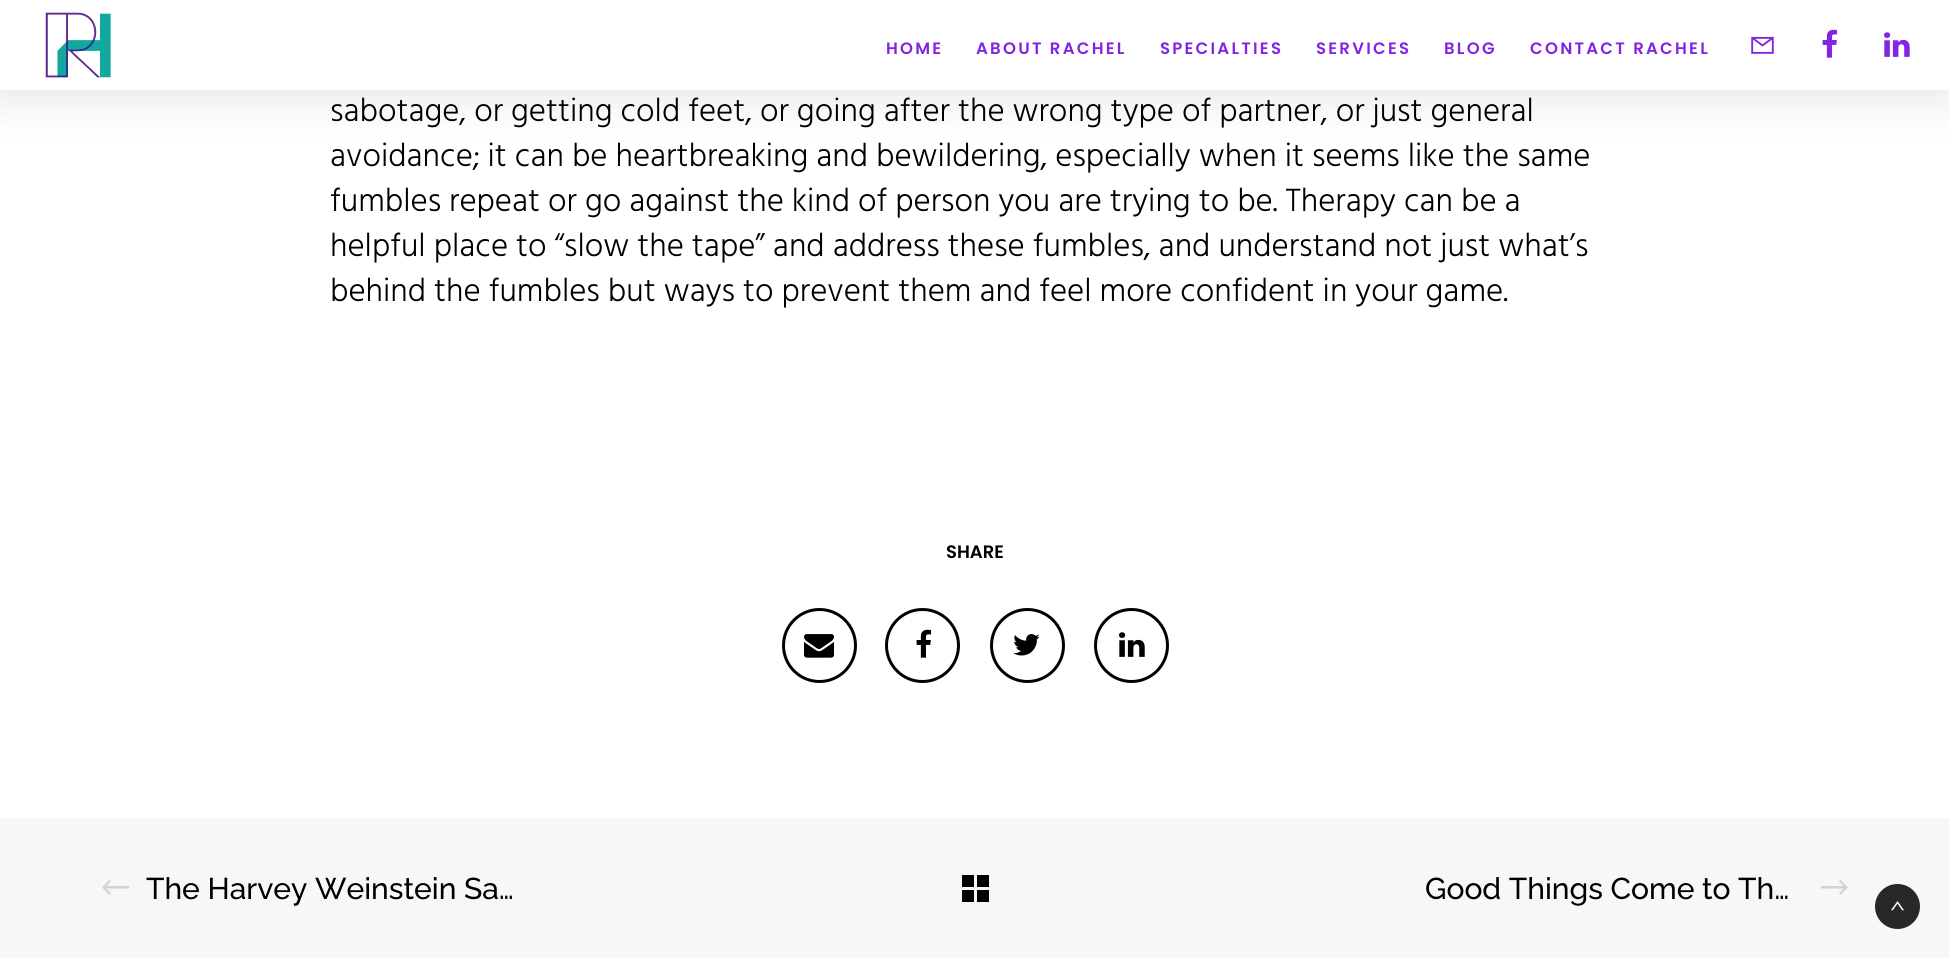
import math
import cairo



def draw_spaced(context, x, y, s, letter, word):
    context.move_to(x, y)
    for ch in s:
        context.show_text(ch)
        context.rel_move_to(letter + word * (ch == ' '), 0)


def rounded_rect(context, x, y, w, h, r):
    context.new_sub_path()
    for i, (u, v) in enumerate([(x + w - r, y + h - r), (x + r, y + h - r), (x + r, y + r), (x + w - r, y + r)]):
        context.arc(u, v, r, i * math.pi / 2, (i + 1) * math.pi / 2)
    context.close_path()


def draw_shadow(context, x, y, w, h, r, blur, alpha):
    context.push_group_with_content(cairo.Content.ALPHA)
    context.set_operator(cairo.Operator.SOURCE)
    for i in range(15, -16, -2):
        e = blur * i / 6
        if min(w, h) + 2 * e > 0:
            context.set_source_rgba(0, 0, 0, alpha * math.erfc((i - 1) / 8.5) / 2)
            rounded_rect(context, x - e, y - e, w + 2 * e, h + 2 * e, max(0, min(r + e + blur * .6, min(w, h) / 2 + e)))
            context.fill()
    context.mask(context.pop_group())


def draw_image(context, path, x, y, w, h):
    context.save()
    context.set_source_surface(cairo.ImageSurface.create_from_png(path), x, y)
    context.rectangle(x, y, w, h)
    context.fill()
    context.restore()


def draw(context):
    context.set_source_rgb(1, 1, 1)
    context.paint()
    context.set_source_rgb(0, 0, 0)
    draw_shadow(context, 0, 9, 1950, 90, 0, 22.5, 0.1)
    context.set_source_rgb(1, 1, 1)
    context.rectangle(0, 0, 1949, 90)
    context.fill()
    draw_image(context, "images/1.png", 45, 12, 66, 66)
    draw_image(context, "images/2.png", 1751, 36, 23, 18)
    draw_image(context, "images/3.png", 1822, 29, 16, 29)
    draw_image(context, "images/4.png", 1884, 32, 26, 25)
    context.arc(819.5, 645.5, 36, 0, 2 * math.pi)
    context.set_source_rgb(0, 0, 0)
    context.set_line_width(3)
    context.stroke()
    draw_image(context, "images/5.png", 804, 634, 30, 24)
    context.arc(922.5, 645.5, 36, 0, 2 * math.pi)
    context.stroke()
    draw_image(context, "images/6.png", 916, 629, 16, 29)
    context.arc(1027.5, 645.5, 36, 0, 2 * math.pi)
    context.stroke()
    draw_image(context, "images/7.png", 1013, 634, 27, 22)
    context.arc(1131.5, 645.5, 36, 0, 2 * math.pi)
    context.stroke()
    draw_image(context, "images/8.png", 1119, 632, 26, 25)
    context.set_source_rgb(247 / 255, 247 / 255, 247 / 255)
    context.rectangle(0, 818, 1949, 140)
    context.fill()
    context.set_source_rgb(211 / 255, 211 / 255, 211 / 255)
    context.new_path()
    context.move_to(111, 893.5)
    context.line_to(106.5, 888.5)
    context.line_to(129, 888.5)
    context.line_to(129, 886)
    context.line_to(106.5, 886)
    context.line_to(111, 881.5)
    context.line_to(109.5, 879.5)
    context.line_to(102, 887.5)
    context.line_to(109.5, 895)
    context.close_path()
    context.fill()
    context.set_source_rgb(0, 0, 0)
    context.rectangle(977, 890, 12, 12)
    context.fill()
    context.rectangle(962, 890, 12, 12)
    context.fill()
    context.rectangle(977, 875, 12, 12)
    context.fill()
    context.rectangle(962, 875, 12, 12)
    context.fill()
    context.set_source_rgb(211 / 255, 211 / 255, 211 / 255)
    context.new_path()
    context.move_to(1839, 881.5)
    context.line_to(1843.5, 886)
    context.line_to(1821, 886)
    context.line_to(1821, 888.5)
    context.line_to(1843.5, 888.5)
    context.line_to(1839, 893.5)
    context.line_to(1840.5, 895)
    context.line_to(1848, 887.5)
    context.line_to(1840.5, 879.5)
    context.close_path()
    context.fill()
    context.set_source_rgb(38 / 255, 40 / 255, 41 / 255)
    context.arc(1897.5, 906.5, 22.5, 0, 2 * math.pi)
    context.fill()
    draw_image(context, "images/9.png", 1891, 901, 13, 10)
    context.select_font_face("Poppins SemiBold")
    context.set_font_size(16.5)
    context.set_source_rgb(130 / 255, 36 / 255, 227 / 255)
    draw_spaced(context, 886, 54, "HOME", 2.25, 0)
    draw_spaced(context, 976, 54, "ABOUT RACHEL", 2.25, 0)
    draw_spaced(context, 1160, 54, "SPECIALTIES", 2.25, 0)
    draw_spaced(context, 1316, 54, "SERVICES", 2.25, 0)
    draw_spaced(context, 1444, 54, "BLOG", 2.25, 0)
    draw_spaced(context, 1530, 54, "CONTACT RACHEL", 2.25, 0)
    context.select_font_face("Hind Light")
    context.set_font_size(33)
    context.set_source_rgb(0, 0, 0)
    context.move_to(330, 121)
    context.show_text("sabotage, or getting cold feet, or going after the wrong type of partner, or just general")
    context.move_to(330, 166)
    context.show_text("avoidance; it can be heartbreaking and bewildering, especially when it seems like the same")
    context.move_to(330, 211)
    context.show_text("fumbles repeat or go against the kind of person you are trying to be. Therapy can be a")
    context.move_to(330, 256)
    context.show_text("helpful place to “slow the tape” and address these fumbles, and understand not just what’s")
    context.move_to(330, 301)
    context.show_text("behind the fumbles but ways to prevent them and feel more confident in your game.")
    context.select_font_face("Poppins SemiBold")
    context.set_font_size(18)
    context.move_to(946, 558)
    context.show_text("SHARE")
    context.select_font_face("Raleway Medium")
    context.set_font_size(30)
    context.move_to(146, 899)
    context.show_text("The Harvey Weinstein Sa…")
    context.move_to(1425, 899)
    context.show_text("Good Things Come to Th…")


surface = cairo.ImageSurface(cairo.Format.RGB24, 1949, 958)
context = cairo.Context(surface)
options = cairo.FontOptions()
options.set_hint_metrics(cairo.HintMetrics.OFF)
options.set_hint_style(cairo.HintStyle.NONE)
context.set_font_options(options)
context.set_miter_limit(4)
draw(context)
surface.write_to_png("out.png")
